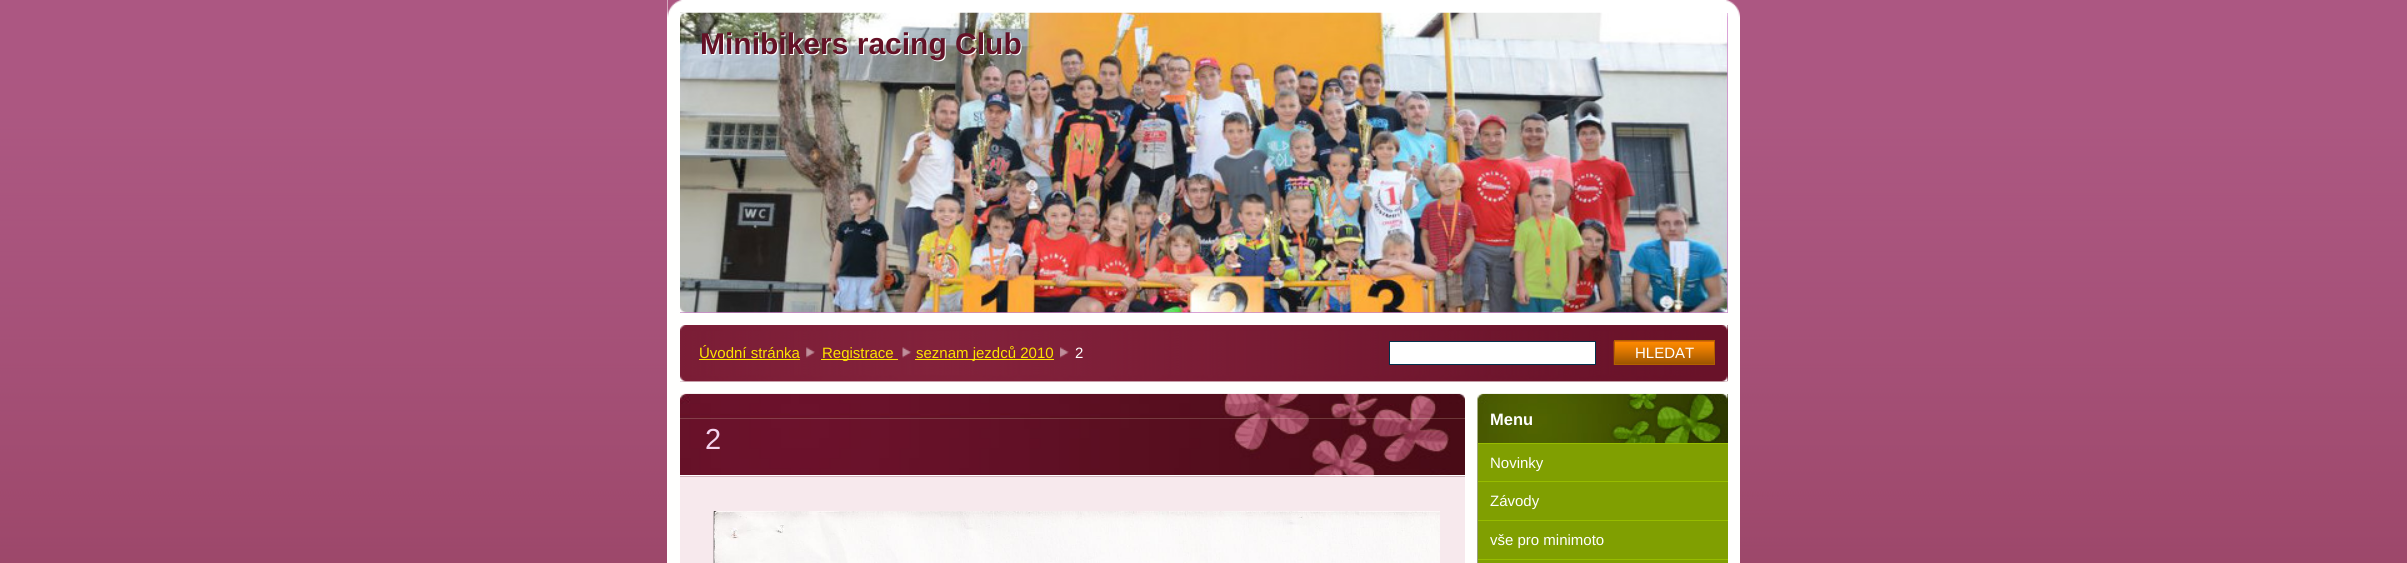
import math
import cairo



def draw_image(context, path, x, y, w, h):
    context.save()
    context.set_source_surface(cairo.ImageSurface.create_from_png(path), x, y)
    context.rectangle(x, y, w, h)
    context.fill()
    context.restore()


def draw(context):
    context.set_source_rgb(1, 1, 1)
    context.paint()
    draw_image(context, "images/1.png", 0, 0, 2407, 563)
    context.set_source_rgb(1, 1, 254 / 255)
    context.rectangle(667, 0, 1073, 563)
    context.fill()
    draw_image(context, "images/2.png", 667, 0, 1073, 18)
    context.set_source_rgb(206 / 255, 134 / 255, 203 / 255)
    context.rectangle(680, 13, 1048, 300)
    context.fill()
    draw_image(context, "images/3.png", 680, 12, 1048, 301)
    draw_image(context, "images/4.png", 680, 12, 1048, 301)
    context.set_source_rgb(106 / 255, 19 / 255, 42 / 255)
    context.rectangle(1727, 325, 1, 56)
    context.fill()
    draw_image(context, "images/5.png", 680, 325, 1048, 57)
    draw_image(context, "images/6.png", 680, 375, 1048, 7)
    draw_image(context, "images/7.png", 680, 325, 1048, 6)
    context.set_source_rgb(1, 228 / 255, 0)
    context.rectangle(699, 359, 101, 1)
    context.fill()
    draw_image(context, "images/8.png", 806, 347, 9, 11)
    context.rectangle(821, 359, 77, 1)
    context.fill()
    draw_image(context, "images/9.png", 902, 347, 10, 11)
    context.rectangle(915, 359, 139, 1)
    context.fill()
    draw_image(context, "images/10.png", 1060, 347, 9, 11)
    context.set_source_rgb(1, 1, 1)
    context.rectangle(1389.5, 341.5, 206, 23)
    context.fill_preserve()
    context.set_source_rgb(0, 49 / 255, 76 / 255)
    context.set_line_width(1)
    context.stroke()
    draw_image(context, "images/11.png", 1613, 341, 101, 24)
    context.rectangle(1614.5, 340.5, 100, 24)
    context.set_source_rgb(178 / 255, 96 / 255, 0)
    context.stroke()
    context.set_source_rgb(247 / 255, 233 / 255, 237 / 255)
    context.rectangle(680, 476, 785, 87)
    context.fill()
    draw_image(context, "images/12.png", 680, 393, 785, 26)
    draw_image(context, "images/13.png", 680, 418, 785, 59)
    context.set_source_rgb(1, 1, 1)
    context.rectangle(680, 475, 785, 1)
    context.fill()
    draw_image(context, "images/14.png", 713, 511, 727, 52)
    context.set_source_rgb(43 / 255, 53 / 255, 0)
    context.rectangle(1727, 394, 1, 49)
    context.fill()
    draw_image(context, "images/15.png", 1477, 393, 251, 170)
    context.set_source_rgb(128 / 255, 159 / 255, 1 / 255)
    context.rectangle(1478, 444, 250, 119)
    context.fill()
    context.set_source_rgb(151 / 255, 188 / 255, 0)
    context.rectangle(1478, 443, 250, 1)
    context.fill()
    context.rectangle(1478, 481, 250, 1)
    context.fill()
    context.rectangle(1478, 520, 250, 1)
    context.fill()
    context.rectangle(1478, 559, 250, 1)
    context.fill()
    context.select_font_face("Liberation Sans", cairo.FontSlant.NORMAL, cairo.FontWeight.BOLD)
    context.set_font_size(30)
    context.set_source_rgb(1, 1, 1)
    context.move_to(701, 55)
    context.show_text("Minibikers racing Club")
    context.set_source_rgb(100 / 255, 17 / 255, 38 / 255)
    context.move_to(700, 54)
    context.show_text("Minibikers racing Club")
    context.select_font_face("Liberation Sans")
    context.set_font_size(15)
    context.set_source_rgb(1, 228 / 255, 0)
    context.move_to(699, 358)
    context.show_text("Úvodní stránka")
    context.move_to(822, 358)
    context.show_text("Registrace")
    context.move_to(916, 358)
    context.show_text("seznam jezdců 2010")
    context.set_source_rgb(1, 1, 1)
    context.move_to(1075, 358)
    context.show_text("2")
    context.move_to(1635, 358)
    context.show_text("HLEDAT")
    context.set_font_size(29)
    context.set_source_rgb(245 / 255, 212 / 255, 239 / 255)
    context.move_to(705, 449)
    context.show_text("2")
    context.select_font_face("Liberation Sans", cairo.FontSlant.NORMAL, cairo.FontWeight.BOLD)
    context.set_font_size(16.5)
    context.set_source_rgb(1, 1, 1)
    context.move_to(1490, 425)
    context.show_text("Menu")
    context.select_font_face("Liberation Sans")
    context.set_font_size(15)
    context.move_to(1490, 468)
    context.show_text("Novinky")
    context.move_to(1490, 506)
    context.show_text("Závody")
    context.move_to(1490, 545)
    context.show_text("vše pro minimoto")


surface = cairo.ImageSurface(cairo.Format.RGB24, 2407, 563)
context = cairo.Context(surface)
options = cairo.FontOptions()
options.set_hint_metrics(cairo.HintMetrics.OFF)
options.set_hint_style(cairo.HintStyle.NONE)
context.set_font_options(options)
context.set_miter_limit(4)
draw(context)
surface.write_to_png("out.png")
